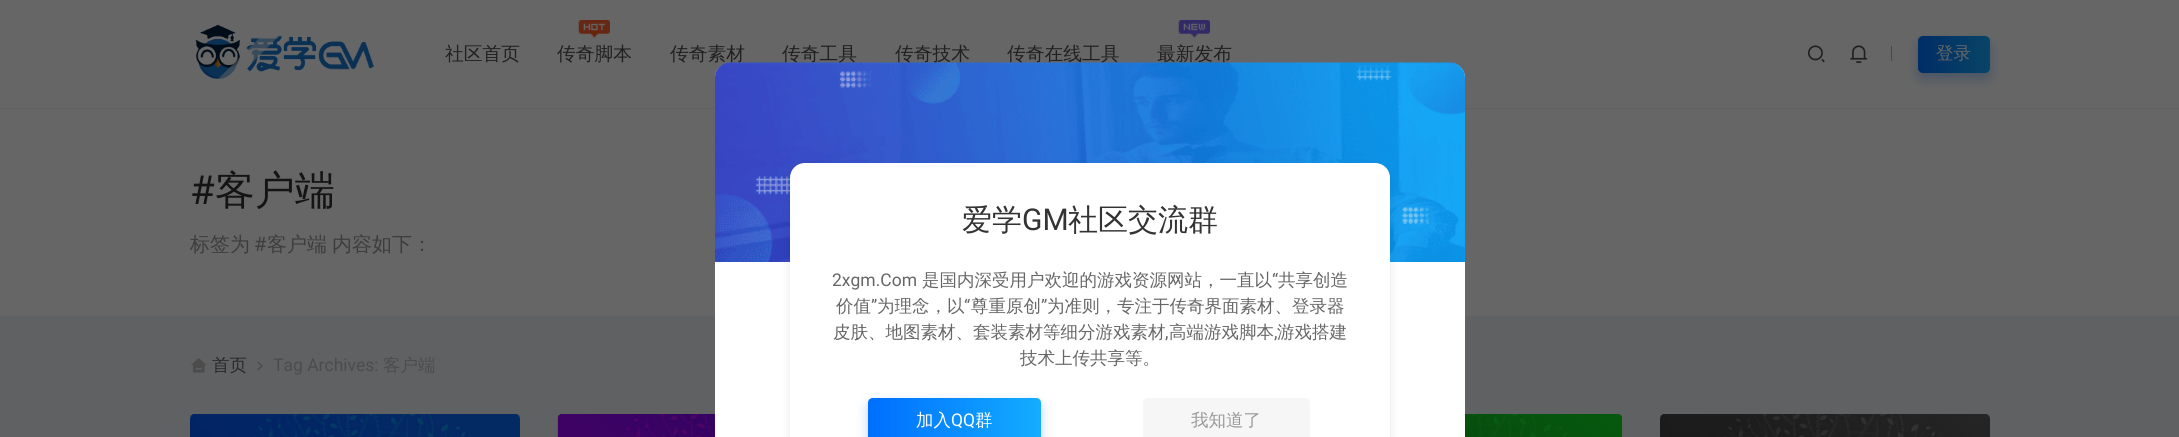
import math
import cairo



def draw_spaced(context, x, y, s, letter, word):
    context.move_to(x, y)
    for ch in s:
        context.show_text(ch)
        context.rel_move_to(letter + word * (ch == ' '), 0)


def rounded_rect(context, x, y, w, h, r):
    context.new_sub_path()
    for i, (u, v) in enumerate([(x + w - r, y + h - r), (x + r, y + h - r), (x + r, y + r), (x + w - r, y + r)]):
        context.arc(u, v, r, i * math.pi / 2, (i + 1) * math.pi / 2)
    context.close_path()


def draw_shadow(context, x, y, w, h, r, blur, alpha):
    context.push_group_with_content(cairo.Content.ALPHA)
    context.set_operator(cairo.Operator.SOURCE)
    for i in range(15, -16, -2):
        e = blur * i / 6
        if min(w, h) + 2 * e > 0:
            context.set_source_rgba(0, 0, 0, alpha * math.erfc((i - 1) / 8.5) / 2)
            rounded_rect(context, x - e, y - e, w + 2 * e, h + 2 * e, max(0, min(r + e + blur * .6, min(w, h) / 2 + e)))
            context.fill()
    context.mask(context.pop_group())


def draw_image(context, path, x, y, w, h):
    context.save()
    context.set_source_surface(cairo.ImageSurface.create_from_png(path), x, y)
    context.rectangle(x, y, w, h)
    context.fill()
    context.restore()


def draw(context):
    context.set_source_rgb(96 / 255, 97 / 255, 98 / 255)
    context.paint()
    context.set_source_rgb(102 / 255, 102 / 255, 102 / 255)
    context.rectangle(0, 0, 2179, 108)
    context.fill()
    draw_image(context, "images/1.png", 195, 24, 179, 55)
    context.set_source_rgba(102 / 255, 102 / 255, 102 / 255, 0.5)
    context.new_path()
    context.move_to(211, 86)
    context.line_to(334, -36)
    context.line_to(343, -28)
    context.line_to(220, 95)
    context.close_path()
    context.fill()
    draw_image(context, "images/2.png", 578, 20, 32, 18)
    draw_image(context, "images/3.png", 1178, 20, 32, 18)
    draw_image(context, "images/4.png", 1807, 45, 18, 18)
    draw_image(context, "images/5.png", 1850, 45, 18, 18)
    context.set_source_rgb(72 / 255, 72 / 255, 72 / 255)
    context.rectangle(1891, 46, 1, 15)
    context.fill()
    context.set_source_rgb(6 / 255, 44 / 255, 101 / 255)
    draw_shadow(context, 1918, 43, 72, 36, 5, 6, 0.3)
    gradient = cairo.LinearGradient(1918, 54, 1990, 54)
    gradient.add_color_stop_rgba(0, 0, 44 / 255, 102 / 255, 1)
    gradient.add_color_stop_rgba(1, 8 / 255, 69 / 255, 102 / 255, 1)
    context.set_source(gradient)
    rounded_rect(context, 1918, 36, 72, 37, 5)
    context.fill()
    context.set_source_rgb(102 / 255, 102 / 255, 102 / 255)
    context.rectangle(0, 109, 2179, 207)
    context.fill()
    draw_image(context, "images/6.png", 191, 358, 16, 15)
    draw_image(context, "images/7.png", 257, 361, 6, 10)
    draw_image(context, "images/8.png", 190, 414, 330, 23)
    draw_image(context, "images/9.png", 557, 414, 158, 23)
    rounded_rect(context, 1293, 414, 330, 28, 5)
    context.fill()
    draw_image(context, "images/10.png", 1465, 414, 158, 23)
    draw_image(context, "images/11.png", 1660, 414, 330, 23)
    context.set_source_rgb(1, 1, 1)
    context.new_path()
    context.move_to(730, 63)
    context.line_to(1450, 63)
    context.curve_to(1458.5, 63, 1465, 69.5, 1465, 78)
    context.line_to(1465, 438)
    context.line_to(715, 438)
    context.line_to(715, 78)
    context.curve_to(715, 69.5, 721.5, 63, 730, 63)
    context.close_path()
    context.fill()
    context.select_font_face("WenQuanYi Zen Hei Medium")
    context.set_font_size(18.75)
    context.set_source_rgb(32 / 255, 32 / 255, 32 / 255)
    context.move_to(445, 60)
    context.show_text("社区首页")
    context.move_to(557, 60)
    context.show_text("传奇脚本")
    context.move_to(670, 60)
    context.show_text("传奇素材")
    context.move_to(782, 60)
    context.show_text("传奇工具")
    context.move_to(895, 60)
    context.show_text("传奇技术")
    context.move_to(1007, 60)
    context.show_text("传奇在线工具")
    context.move_to(1157, 60)
    context.show_text("最新发布")
    context.set_font_size(17.5)
    context.set_source_rgb(102 / 255, 102 / 255, 102 / 255)
    context.move_to(1936, 59)
    context.show_text("登录")
    context.select_font_face("Roboto")
    context.set_font_size(40)
    context.set_source_rgb(20 / 255, 20 / 255, 20 / 255)
    context.move_to(190, 204)
    context.show_text("#")
    context.select_font_face("WenQuanYi Zen Hei Medium")
    context.move_to(215, 204)
    context.show_text("客户端")
    context.set_font_size(20)
    context.set_source_rgb(61 / 255, 61 / 255, 61 / 255)
    context.move_to(190, 251)
    context.show_text("标签为")
    context.select_font_face("Roboto")
    context.move_to(254, 251)
    context.show_text("#")
    context.select_font_face("WenQuanYi Zen Hei Medium")
    draw_spaced(context, 267, 251, "客户端 内容如下：", 0, -1)
    context.set_font_size(17.5)
    context.set_source_rgb(41 / 255, 41 / 255, 41 / 255)
    context.move_to(212, 371)
    context.show_text("首页")
    context.select_font_face("Roboto")
    context.set_source_rgb(76 / 255, 76 / 255, 76 / 255)
    context.move_to(273, 371)
    context.show_text("Tag Archives:")
    context.select_font_face("WenQuanYi Zen Hei Medium")
    context.move_to(383, 371)
    context.show_text("客户端")
    draw_image(context, "images/12.png", 715, 62, 750, 200)
    context.set_source_rgb(7 / 255, 17 / 255, 27 / 255)
    draw_shadow(context, 790, 168, 600, 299, 15, 5, 0.1)
    context.set_source_rgb(1, 1, 1)
    context.new_path()
    context.move_to(805, 163)
    context.line_to(1375, 163)
    context.curve_to(1383.5, 163, 1390, 169.5, 1390, 178)
    context.line_to(1390, 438)
    context.line_to(790, 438)
    context.line_to(790, 178)
    context.curve_to(790, 169.5, 796.5, 163, 805, 163)
    context.close_path()
    context.fill()
    context.set_font_size(30)
    context.set_source_rgb(51 / 255, 51 / 255, 51 / 255)
    context.move_to(962, 230)
    context.show_text("爱学")
    context.select_font_face("Roboto")
    context.move_to(1022, 230)
    context.show_text("GM")
    context.select_font_face("WenQuanYi Zen Hei Medium")
    context.move_to(1068, 230)
    context.show_text("社区交流群")
    context.select_font_face("Roboto")
    context.set_font_size(17.5)
    context.set_source_rgb(102 / 255, 102 / 255, 102 / 255)
    context.move_to(832, 286)
    context.show_text("2xgm.Com")
    context.select_font_face("WenQuanYi Zen Hei Medium")
    context.move_to(922, 286)
    context.show_text("是国内深受用户欢迎的游戏资源网站，一直以")
    context.select_font_face("Roboto")
    context.move_to(1272, 286)
    context.show_text("“")
    context.select_font_face("WenQuanYi Zen Hei Medium")
    context.move_to(1278, 286)
    context.show_text("共享创造")
    context.move_to(836, 312)
    context.show_text("价值")
    context.select_font_face("Roboto")
    context.move_to(871, 312)
    context.show_text("”")
    context.select_font_face("WenQuanYi Zen Hei Medium")
    context.move_to(877, 312)
    context.show_text("为理念，以")
    context.select_font_face("Roboto")
    context.move_to(964, 312)
    context.show_text("“")
    context.select_font_face("WenQuanYi Zen Hei Medium")
    context.move_to(971, 312)
    context.show_text("尊重原创")
    context.select_font_face("Roboto")
    context.move_to(1041, 312)
    context.show_text("”")
    context.select_font_face("WenQuanYi Zen Hei Medium")
    context.move_to(1047, 312)
    context.show_text("为准则，专注于传奇界面素材、登录器")
    context.move_to(833, 338)
    context.show_text("皮肤、地图素材、套装素材等细分游戏素材")
    context.select_font_face("Roboto")
    context.move_to(1165, 338)
    context.show_text(",")
    context.select_font_face("WenQuanYi Zen Hei Medium")
    context.move_to(1169, 338)
    context.show_text("高端游戏脚本")
    context.select_font_face("Roboto")
    context.move_to(1274, 338)
    context.show_text(",")
    context.select_font_face("WenQuanYi Zen Hei Medium")
    context.move_to(1277, 338)
    context.show_text("游戏搭建")
    context.move_to(1020, 364)
    context.show_text("技术上传共享等。")
    context.set_source_rgb(16 / 255, 110 / 255, 253 / 255)
    draw_shadow(context, 868, 404, 173, 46, 5, 6, 0.3)
    gradient = cairo.LinearGradient(868, 421, 1041, 421)
    gradient.add_color_stop_rgba(0, 0, 110 / 255, 1, 1)
    gradient.add_color_stop_rgba(1, 19 / 255, 173 / 255, 1, 1)
    context.set_source(gradient)
    context.new_path()
    context.move_to(873, 398)
    context.line_to(1036, 398)
    context.curve_to(1039, 398, 1041, 400, 1041, 403)
    context.line_to(1041, 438)
    context.line_to(868, 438)
    context.line_to(868, 403)
    context.curve_to(868, 400, 870, 398, 873, 398)
    context.close_path()
    context.fill()
    context.set_source_rgb(1, 1, 1)
    context.move_to(916, 426)
    context.show_text("加入")
    context.select_font_face("Roboto")
    context.move_to(951, 426)
    context.show_text("QQ")
    context.select_font_face("WenQuanYi Zen Hei Medium")
    context.move_to(975, 426)
    context.show_text("群")
    context.set_source_rgb(246 / 255, 246 / 255, 246 / 255)
    context.new_path()
    context.move_to(1148, 398)
    context.line_to(1305, 398)
    context.curve_to(1308, 398, 1310, 400, 1310, 403)
    context.line_to(1310, 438)
    context.line_to(1143, 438)
    context.line_to(1143, 403)
    context.curve_to(1143, 400, 1145, 398, 1148, 398)
    context.close_path()
    context.fill()
    context.set_source_rgb(153 / 255, 153 / 255, 153 / 255)
    context.move_to(1191, 426)
    context.show_text("我知道了")


surface = cairo.ImageSurface(cairo.Format.RGB24, 2179, 437)
context = cairo.Context(surface)
options = cairo.FontOptions()
options.set_hint_metrics(cairo.HintMetrics.OFF)
options.set_hint_style(cairo.HintStyle.NONE)
context.set_font_options(options)
context.set_miter_limit(4)
draw(context)
surface.write_to_png("out.png")
